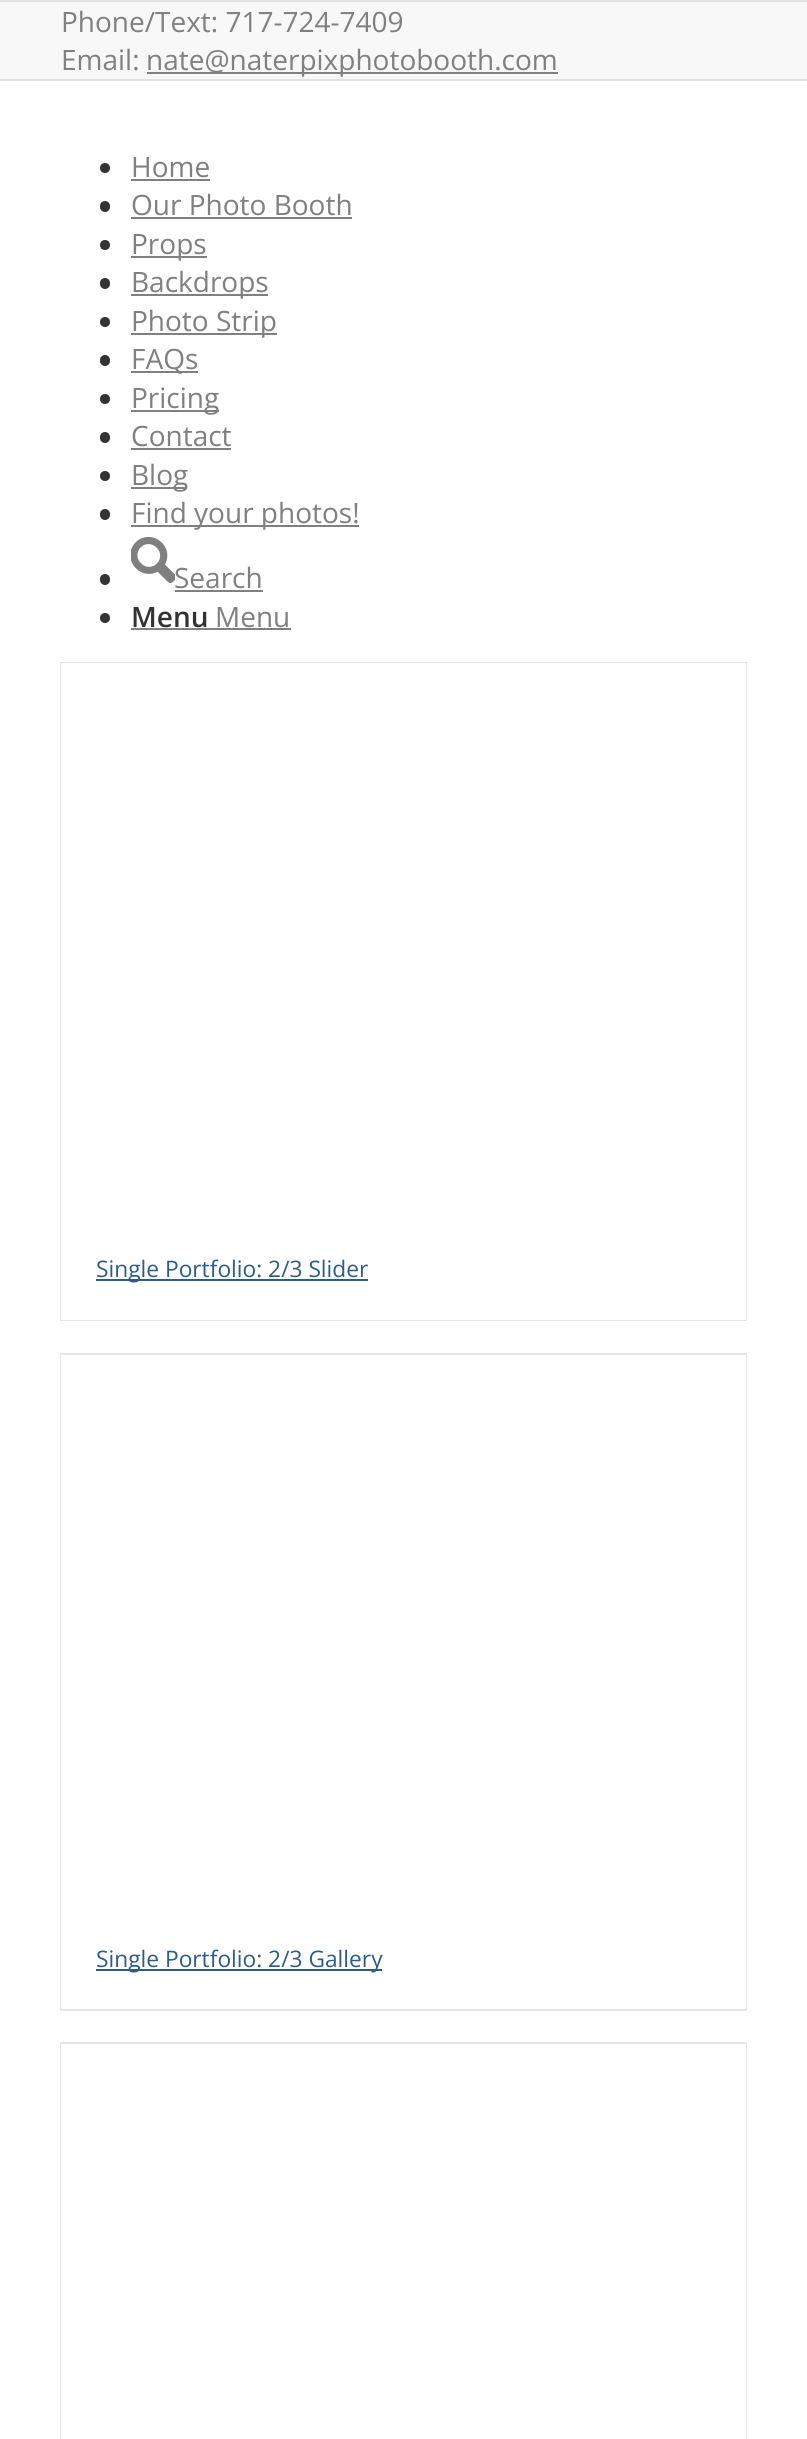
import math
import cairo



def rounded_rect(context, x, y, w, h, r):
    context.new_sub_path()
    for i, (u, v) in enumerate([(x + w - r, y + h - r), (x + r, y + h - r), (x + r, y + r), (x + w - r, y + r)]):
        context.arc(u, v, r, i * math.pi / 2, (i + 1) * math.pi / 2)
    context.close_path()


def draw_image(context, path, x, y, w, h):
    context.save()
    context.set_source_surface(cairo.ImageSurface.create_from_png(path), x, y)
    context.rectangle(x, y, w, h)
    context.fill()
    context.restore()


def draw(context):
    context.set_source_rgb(1, 1, 1)
    context.paint()
    context.set_source_rgb(248 / 255, 248 / 255, 248 / 255)
    context.rectangle(0, 2, 807, 77)
    context.fill()
    context.set_source_rgb(225 / 255, 225 / 255, 225 / 255)
    context.rectangle(0, 0, 807, 2)
    context.fill()
    context.set_source_rgb(128 / 255, 128 / 255, 128 / 255)
    context.rectangle(147, 72, 411, 2)
    context.fill()
    context.set_source_rgb(225 / 255, 225 / 255, 225 / 255)
    context.rectangle(0, 79, 807, 2)
    context.fill()
    context.set_source_rgb(51 / 255, 51 / 255, 51 / 255)
    context.arc(105, 168, 5, 0, 2 * math.pi)
    context.fill()
    context.set_source_rgb(128 / 255, 128 / 255, 128 / 255)
    context.rectangle(131, 179, 79, 2)
    context.fill()
    context.set_source_rgb(51 / 255, 51 / 255, 51 / 255)
    rounded_rect(context, 100, 201, 10, 11, 5)
    context.fill()
    context.set_source_rgb(128 / 255, 128 / 255, 128 / 255)
    context.rectangle(131, 217, 221, 2)
    context.fill()
    context.set_source_rgb(51 / 255, 51 / 255, 51 / 255)
    context.arc(105, 245, 5, 0, 2 * math.pi)
    context.fill()
    context.set_source_rgb(128 / 255, 128 / 255, 128 / 255)
    context.rectangle(131, 256, 76, 2)
    context.fill()
    context.set_source_rgb(51 / 255, 51 / 255, 51 / 255)
    rounded_rect(context, 100, 278, 10, 11, 5)
    context.fill()
    context.set_source_rgb(128 / 255, 128 / 255, 128 / 255)
    context.rectangle(131, 294, 137, 2)
    context.fill()
    context.set_source_rgb(51 / 255, 51 / 255, 51 / 255)
    context.arc(105, 322, 5, 0, 2 * math.pi)
    context.fill()
    context.set_source_rgb(128 / 255, 128 / 255, 128 / 255)
    context.rectangle(131, 333, 146, 2)
    context.fill()
    context.set_source_rgb(51 / 255, 51 / 255, 51 / 255)
    rounded_rect(context, 100, 355, 10, 11, 5)
    context.fill()
    context.set_source_rgb(128 / 255, 128 / 255, 128 / 255)
    context.rectangle(131, 371, 67, 2)
    context.fill()
    context.set_source_rgb(51 / 255, 51 / 255, 51 / 255)
    context.arc(105, 399, 5, 0, 2 * math.pi)
    context.fill()
    context.set_source_rgb(128 / 255, 128 / 255, 128 / 255)
    context.rectangle(131, 410, 88, 2)
    context.fill()
    context.set_source_rgb(51 / 255, 51 / 255, 51 / 255)
    rounded_rect(context, 100, 432, 10, 11, 5)
    context.fill()
    context.set_source_rgb(128 / 255, 128 / 255, 128 / 255)
    context.rectangle(131, 448, 100, 2)
    context.fill()
    context.set_source_rgb(51 / 255, 51 / 255, 51 / 255)
    context.arc(105, 476, 5, 0, 2 * math.pi)
    context.fill()
    context.set_source_rgb(128 / 255, 128 / 255, 128 / 255)
    context.rectangle(131, 487, 56, 2)
    context.fill()
    context.set_source_rgb(51 / 255, 51 / 255, 51 / 255)
    rounded_rect(context, 100, 509, 10, 11, 5)
    context.fill()
    context.set_source_rgb(128 / 255, 128 / 255, 128 / 255)
    context.rectangle(131, 525, 228, 2)
    context.fill()
    context.set_source_rgb(51 / 255, 51 / 255, 51 / 255)
    rounded_rect(context, 100, 574, 10, 11, 5)
    context.fill()
    draw_image(context, "images/1.png", 131, 536, 44, 47)
    context.set_source_rgb(128 / 255, 128 / 255, 128 / 255)
    context.rectangle(175, 590, 88, 2)
    context.fill()
    context.set_source_rgb(51 / 255, 51 / 255, 51 / 255)
    context.arc(105, 618, 5, 0, 2 * math.pi)
    context.fill()
    context.set_source_rgb(128 / 255, 128 / 255, 128 / 255)
    context.rectangle(131, 628, 160, 2)
    context.fill()
    context.rectangle(61, 663, 685, 657)
    context.set_source_rgb(230 / 255, 230 / 255, 230 / 255)
    context.stroke()
    context.set_source_rgb(1, 1, 1)
    context.rectangle(61, 663, 685, 657)
    context.fill()
    context.set_source_rgb(45 / 255, 92 / 255, 136 / 255)
    context.rectangle(96, 1279, 272, 2)
    context.fill()
    context.rectangle(61, 1354, 685, 656)
    context.set_source_rgb(230 / 255, 230 / 255, 230 / 255)
    context.stroke()
    context.set_source_rgb(1, 1, 1)
    context.rectangle(61, 1355, 685, 654)
    context.fill()
    context.set_source_rgb(45 / 255, 92 / 255, 136 / 255)
    context.rectangle(96, 1969, 286, 2)
    context.fill()
    context.rectangle(61, 2043, 685, 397)
    context.set_source_rgb(230 / 255, 230 / 255, 230 / 255)
    context.stroke()
    context.set_source_rgb(1, 1, 1)
    context.rectangle(61, 2044, 685, 395)
    context.fill()
    context.select_font_face("Open Sans")
    context.set_font_size(28)
    context.set_source_rgb(128 / 255, 128 / 255, 128 / 255)
    context.move_to(61, 32)
    context.show_text("Phone/Text: 717-724-7409")
    context.move_to(61, 70)
    context.show_text("Email:")
    context.move_to(146, 70)
    context.show_text("nate@naterpixphotobooth.com")
    context.move_to(131, 177)
    context.show_text("Home")
    context.move_to(131, 215)
    context.show_text("Our Photo Booth")
    context.move_to(131, 254)
    context.show_text("Props")
    context.move_to(131, 292)
    context.show_text("Backdrops")
    context.move_to(131, 331)
    context.show_text("Photo Strip")
    context.move_to(131, 369)
    context.show_text("FAQs")
    context.move_to(131, 408)
    context.show_text("Pricing")
    context.move_to(131, 446)
    context.show_text("Contact")
    context.move_to(131, 485)
    context.show_text("Blog")
    context.move_to(131, 523)
    context.show_text("Find your photos!")
    context.move_to(174, 588)
    context.show_text("Search")
    context.select_font_face("Open Sans SemiBold")
    context.set_source_rgb(51 / 255, 51 / 255, 51 / 255)
    context.move_to(131, 627)
    context.show_text("Menu")
    context.select_font_face("Open Sans")
    context.set_source_rgb(128 / 255, 128 / 255, 128 / 255)
    context.move_to(215, 627)
    context.show_text("Menu")
    context.set_font_size(22.75)
    context.set_source_rgb(45 / 255, 92 / 255, 136 / 255)
    context.move_to(96, 1277)
    context.show_text("Single Portfolio: 2/3 Slider")
    context.move_to(96, 1967)
    context.show_text("Single Portfolio: 2/3 Gallery")


surface = cairo.ImageSurface(cairo.Format.RGB24, 807, 2439)
context = cairo.Context(surface)
options = cairo.FontOptions()
options.set_hint_metrics(cairo.HintMetrics.OFF)
options.set_hint_style(cairo.HintStyle.NONE)
context.set_font_options(options)
context.set_miter_limit(4)
draw(context)
surface.write_to_png("out.png")
